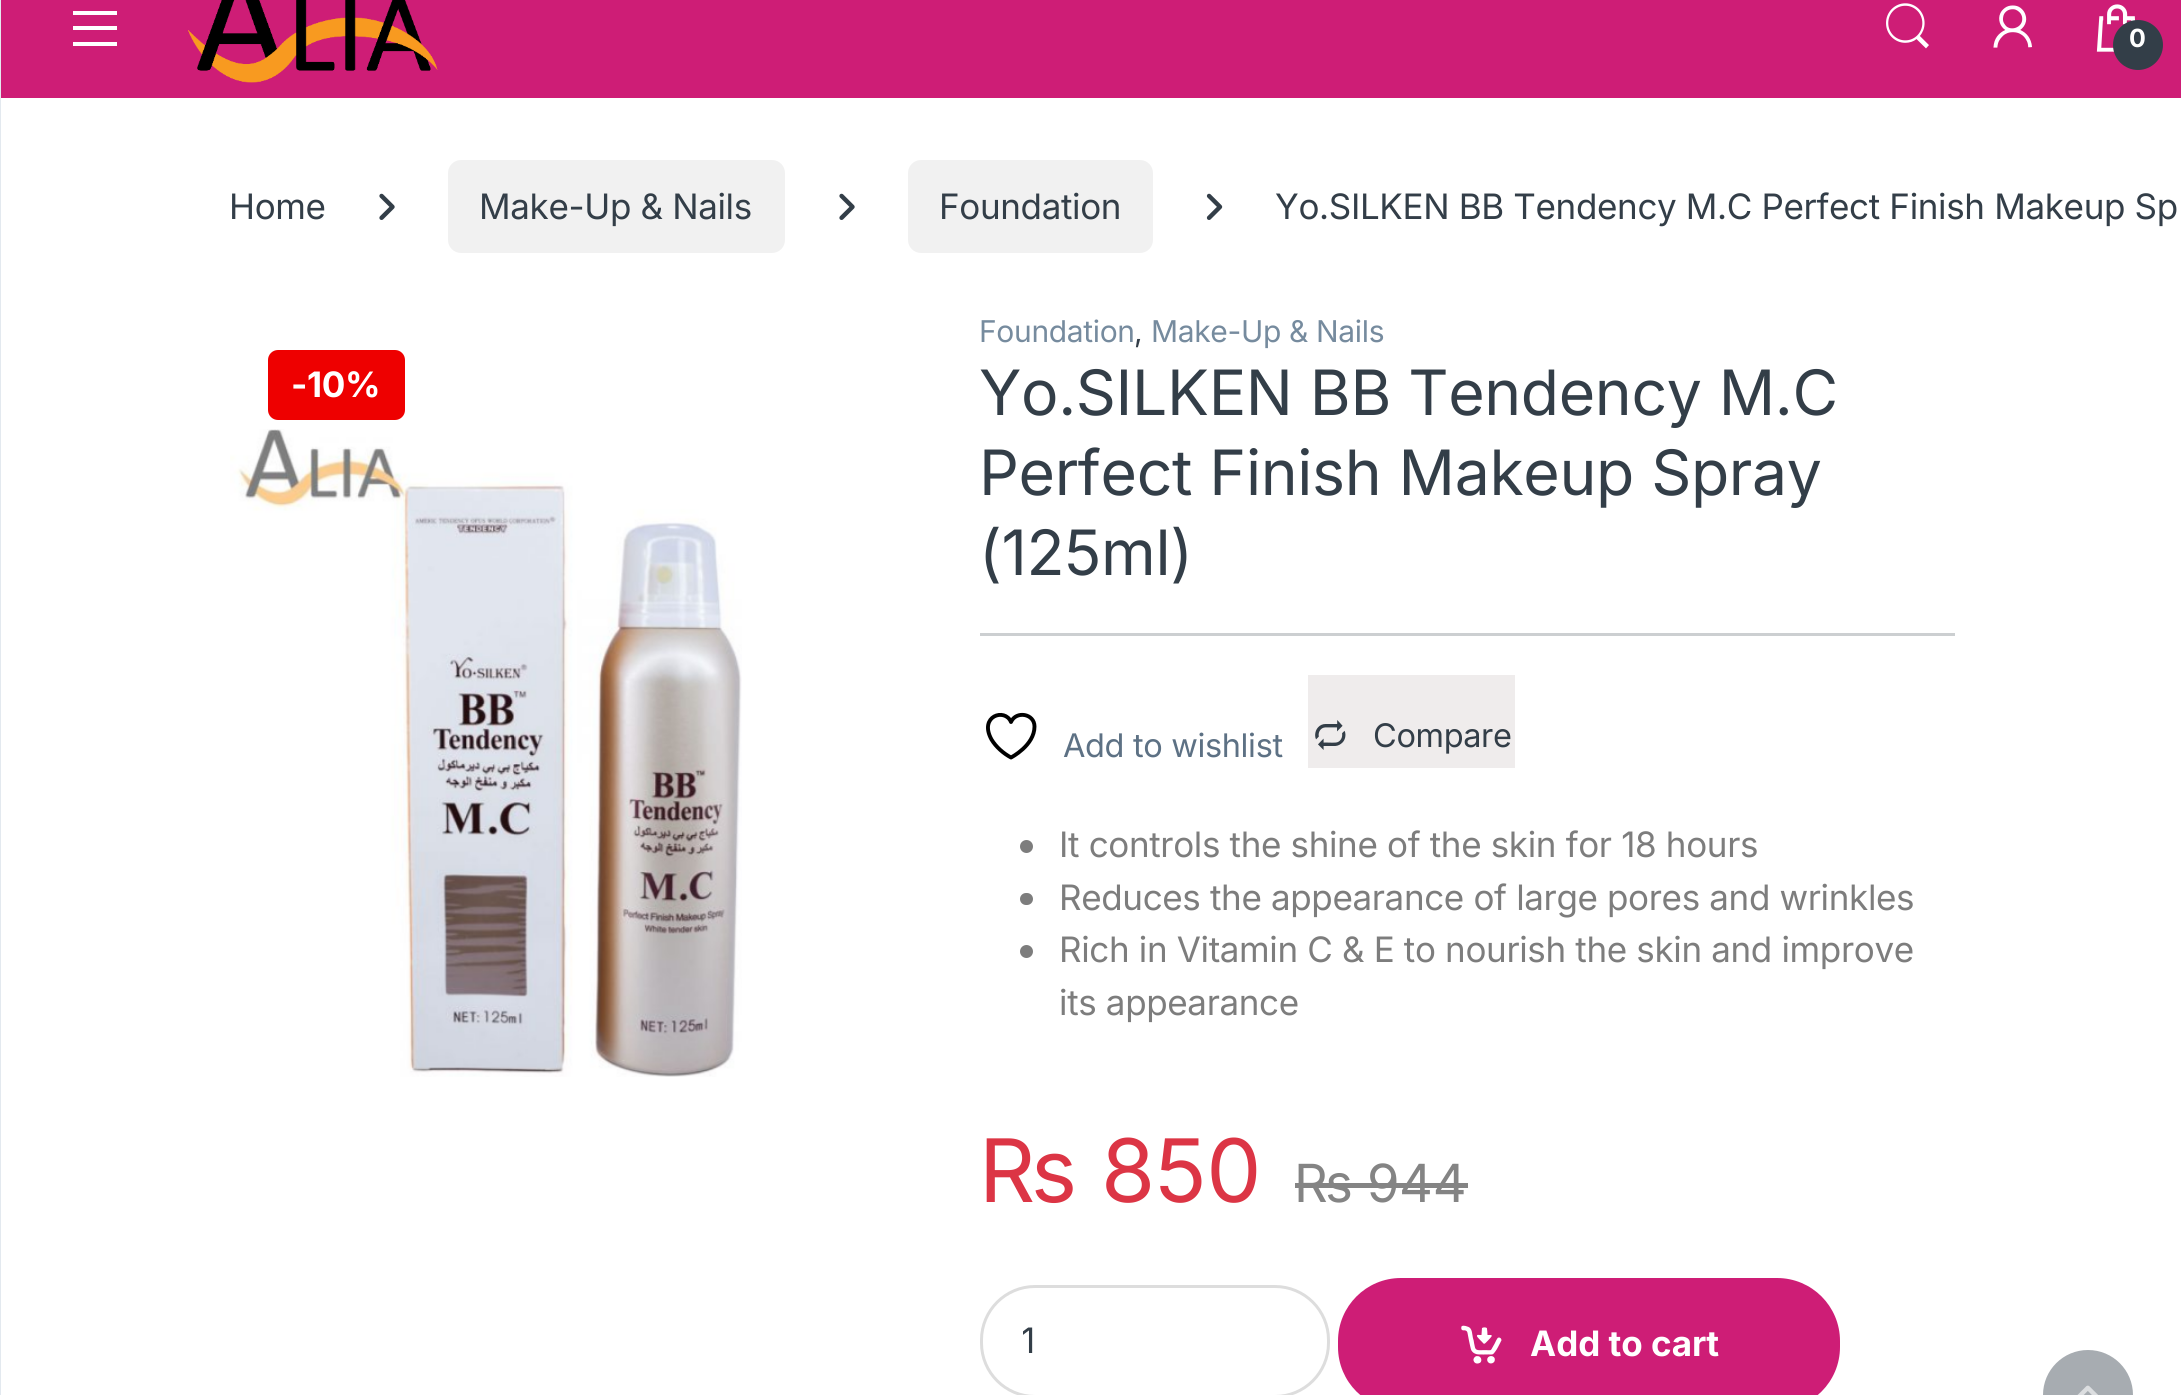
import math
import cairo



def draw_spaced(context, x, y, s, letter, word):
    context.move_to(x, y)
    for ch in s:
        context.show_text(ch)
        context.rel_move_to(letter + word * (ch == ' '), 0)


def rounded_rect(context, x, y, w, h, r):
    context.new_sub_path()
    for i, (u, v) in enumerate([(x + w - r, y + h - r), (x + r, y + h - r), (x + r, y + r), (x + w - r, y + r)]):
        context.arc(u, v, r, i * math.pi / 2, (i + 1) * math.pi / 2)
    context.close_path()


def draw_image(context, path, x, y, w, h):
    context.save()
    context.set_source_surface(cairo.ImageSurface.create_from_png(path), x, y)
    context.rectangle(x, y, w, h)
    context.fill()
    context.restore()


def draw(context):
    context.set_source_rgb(1, 1, 1)
    context.paint()
    context.set_source_rgb(206 / 255, 29 / 255, 118 / 255)
    context.rectangle(1, 0, 2180, 98)
    context.fill()
    context.set_source_rgb(227 / 255, 233 / 255, 239 / 255)
    context.rectangle(0, 0, 1, 1395)
    context.fill()
    context.set_source_rgb(1, 1, 1)
    context.new_path()
    context.move_to(73, 46)
    context.line_to(73, 42)
    context.line_to(117, 42)
    context.line_to(117, 46)
    context.close_path()
    context.move_to(73, 26)
    context.line_to(117, 26)
    context.line_to(117, 30)
    context.line_to(73, 30)
    context.close_path()
    context.move_to(73, 11)
    context.line_to(117, 11)
    context.line_to(117, 15)
    context.line_to(73, 15)
    context.close_path()
    context.fill()
    draw_image(context, "images/1.png", 188, 0, 250, 83)
    draw_image(context, "images/2.png", 1886, 3, 43, 46)
    draw_image(context, "images/3.png", 1993, 5, 39, 43)
    draw_image(context, "images/4.png", 2096, 4, 40, 48)
    context.set_source_rgb(51 / 255, 62 / 255, 72 / 255)
    context.arc(2138, 45, 25, 0, 2 * math.pi)
    context.fill()
    draw_image(context, "images/5.png", 379, 193, 16, 27)
    context.set_source_rgb(241 / 255, 241 / 255, 241 / 255)
    rounded_rect(context, 448, 160, 337, 93, 13)
    context.fill()
    draw_image(context, "images/5.png", 839, 193, 16, 27)
    rounded_rect(context, 908, 160, 245, 93, 13)
    context.fill()
    draw_image(context, "images/6.png", 1206, 193, 17, 27)
    context.set_source_rgb(238 / 255, 0, 0)
    rounded_rect(context, 268, 350, 137, 70, 10)
    context.fill()
    draw_image(context, "images/7.png", 230, 429, 512, 648)
    context.set_source_rgb(204 / 255, 207 / 255, 209 / 255)
    context.rectangle(980, 633, 975, 3)
    context.fill()
    context.new_path()
    context.move_to(1034.5, 726.5)
    context.curve_to(1034.5, 713.5, 1016, 710.5, 1011, 722)
    context.curve_to(1005, 707.5, 978.5, 716, 991.5, 739.5)
    context.curve_to(996, 747, 1003.5, 753.5, 1011, 757.5)
    context.curve_to(1011, 757.5, 1034.5, 745.5, 1034.5, 726.5)
    context.close_path()
    context.set_source_rgb(0, 0, 0)
    context.set_line_width(3.9)
    context.set_line_cap(cairo.LineCap.ROUND)
    context.set_line_join(cairo.LineJoin.ROUND)
    context.stroke()
    context.set_source_rgb(239 / 255, 236 / 255, 236 / 255)
    context.rectangle(1308, 675, 207, 93)
    context.fill()
    draw_image(context, "images/8.png", 1315, 720, 31, 30)
    context.set_source_rgb(125 / 255, 125 / 255, 125 / 255)
    context.arc(1026.5, 846.5, 6.5, 0, 2 * math.pi)
    context.fill()
    rounded_rect(context, 1020, 893, 13, 12, 6)
    context.fill()
    context.arc(1026.5, 951.5, 6.5, 0, 2 * math.pi)
    context.fill()
    context.set_source_rgb(132 / 255, 132 / 255, 132 / 255)
    context.rectangle(1295, 1183, 173, 5)
    context.fill()
    rounded_rect(context, 981.5, 1286.5, 347, 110, 53.5)
    context.set_source_rgb(221 / 255, 221 / 255, 221 / 255)
    context.set_line_width(3)
    context.set_line_cap(cairo.LineCap.BUTT)
    context.set_line_join(cairo.LineJoin.MITER)
    context.stroke()
    context.set_source_rgb(206 / 255, 29 / 255, 118 / 255)
    rounded_rect(context, 1338, 1278, 502, 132, 63)
    context.fill()
    draw_image(context, "images/9.png", 1461, 1325, 41, 39)
    context.set_source_rgb(167 / 255, 172 / 255, 177 / 255)
    context.arc(2088, 1395, 43.5, 0, 2 * math.pi)
    context.fill_preserve()
    context.stroke()
    draw_image(context, "images/10.png", 2077, 1385, 21, 10)
    context.select_font_face("Inter", cairo.FontSlant.NORMAL, cairo.FontWeight.BOLD)
    context.set_font_size(25)
    context.set_source_rgb(1, 1, 1)
    draw_spaced(context, 2129, 47, "0", -0.35, 0)
    context.select_font_face("Inter")
    context.set_font_size(35)
    context.set_source_rgb(51 / 255, 62 / 255, 72 / 255)
    draw_spaced(context, 229, 219, "Home", -0.35, 0)
    draw_spaced(context, 479, 219, "Make-Up & Nails", -0.35, 0)
    draw_spaced(context, 939, 219, "Foundation", -0.35, 0)
    draw_spaced(context, 1275, 219, "Yo.SILKEN BB Tendency M.C Perfect Finish Makeup Sp", -0.35, 0)
    context.select_font_face("Inter", cairo.FontSlant.NORMAL, cairo.FontWeight.BOLD)
    context.set_source_rgb(1, 1, 1)
    draw_spaced(context, 291, 397, "-10%", -0.35, 0)
    context.select_font_face("Inter")
    context.set_font_size(30)
    context.set_source_rgb(118 / 255, 139 / 255, 158 / 255)
    draw_spaced(context, 979, 342, "Foundation", -0.35, 0)
    context.set_source_rgb(51 / 255, 62 / 255, 72 / 255)
    draw_spaced(context, 1134, 342, ",", -0.35, 0)
    context.set_source_rgb(118 / 255, 139 / 255, 158 / 255)
    draw_spaced(context, 1151, 342, "Make-Up & Nails", -0.35, 0)
    context.set_font_size(62.5)
    context.set_source_rgb(51 / 255, 62 / 255, 72 / 255)
    draw_spaced(context, 979, 415, "Yo.SILKEN BB Tendency M.C", -0.35, 0)
    draw_spaced(context, 979, 495, "Perfect Finish Makeup Spray", -0.35, 0)
    draw_spaced(context, 979, 575, "(125ml)", -0.35, 0)
    context.set_font_size(32.5)
    context.set_source_rgb(93 / 255, 113 / 255, 132 / 255)
    draw_spaced(context, 1063, 757, "Add to wishlist", -0.35, 0)
    context.set_source_rgb(51 / 255, 62 / 255, 72 / 255)
    draw_spaced(context, 1373, 747, "Compare", -0.35, 0)
    context.set_font_size(35)
    context.set_source_rgb(125 / 255, 125 / 255, 125 / 255)
    draw_spaced(context, 1059, 857, "It controls the shine of the skin for 18 hours", -0.35, 0)
    draw_spaced(context, 1059, 910, "Reduces the appearance of large pores and wrinkles", -0.35, 0)
    draw_spaced(context, 1059, 962, "Rich in Vitamin C & E to nourish the skin and improve", -0.35, 0)
    draw_spaced(context, 1059, 1015, "its appearance", -0.35, 0)
    context.set_font_size(87.5)
    context.set_source_rgb(220 / 255, 53 / 255, 69 / 255)
    draw_spaced(context, 979, 1202, "₨ 850", -0.35, 0)
    context.set_font_size(52.5)
    context.set_source_rgb(132 / 255, 132 / 255, 132 / 255)
    draw_spaced(context, 1294, 1202, "₨ 944", -0.35, 0)
    context.save()
    context.rectangle(1023, 1310, 227, 60)
    context.clip()
    context.set_font_size(35)
    context.set_source_rgb(51 / 255, 62 / 255, 72 / 255)
    context.move_to(1021, 1353)
    context.show_text("1")
    context.restore()
    context.select_font_face("Inter", cairo.FontSlant.NORMAL, cairo.FontWeight.BOLD)
    context.set_font_size(35)
    context.set_source_rgb(1, 1, 1)
    context.move_to(1530, 1356)
    context.show_text("Add to cart")


surface = cairo.ImageSurface(cairo.Format.RGB24, 2181, 1395)
context = cairo.Context(surface)
options = cairo.FontOptions()
options.set_hint_metrics(cairo.HintMetrics.OFF)
options.set_hint_style(cairo.HintStyle.NONE)
context.set_font_options(options)
context.set_miter_limit(4)
draw(context)
surface.write_to_png("out.png")
